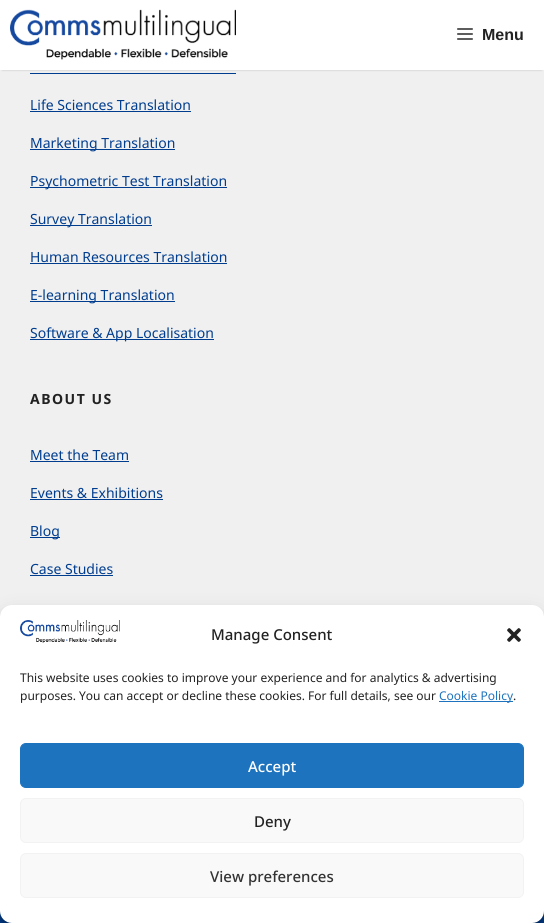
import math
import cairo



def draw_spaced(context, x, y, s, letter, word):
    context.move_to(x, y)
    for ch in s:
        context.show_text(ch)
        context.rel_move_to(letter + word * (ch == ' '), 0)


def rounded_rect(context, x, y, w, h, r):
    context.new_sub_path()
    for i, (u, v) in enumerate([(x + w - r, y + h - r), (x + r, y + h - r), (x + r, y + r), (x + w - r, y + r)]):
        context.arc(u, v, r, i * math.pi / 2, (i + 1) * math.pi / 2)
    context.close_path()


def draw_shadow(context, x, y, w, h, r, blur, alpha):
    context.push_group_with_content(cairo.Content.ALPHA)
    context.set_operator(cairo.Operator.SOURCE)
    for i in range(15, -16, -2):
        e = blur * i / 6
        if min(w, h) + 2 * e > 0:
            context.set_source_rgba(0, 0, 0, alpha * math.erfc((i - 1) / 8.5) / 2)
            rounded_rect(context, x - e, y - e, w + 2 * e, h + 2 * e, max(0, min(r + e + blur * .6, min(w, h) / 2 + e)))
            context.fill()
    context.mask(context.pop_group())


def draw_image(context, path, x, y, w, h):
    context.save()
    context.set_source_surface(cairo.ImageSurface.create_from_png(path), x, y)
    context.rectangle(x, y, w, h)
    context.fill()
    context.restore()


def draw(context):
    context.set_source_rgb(240 / 255, 240 / 255, 240 / 255)
    context.paint()
    context.set_source_rgb(0, 61 / 255, 143 / 255)
    context.rectangle(30, 73, 206, 1)
    context.fill()
    context.set_source_rgb(0, 0, 0)
    draw_shadow(context, 2, 4, 540, 66, 0, 1, 0.2)
    context.set_source_rgb(1, 1, 1)
    context.rectangle(0, 0, 544, 70)
    context.fill()
    draw_image(context, "images/1.png", 10, 9, 226, 51)
    draw_image(context, "images/2.png", 457, 28, 16, 12)
    context.set_source_rgb(0, 61 / 255, 143 / 255)
    context.rectangle(30, 111, 161, 1)
    context.fill()
    context.rectangle(30, 149, 145, 1)
    context.fill()
    context.rectangle(30, 187, 197, 1)
    context.fill()
    context.rectangle(30, 225, 122, 1)
    context.fill()
    context.rectangle(30, 263, 197, 1)
    context.fill()
    context.rectangle(30, 301, 145, 1)
    context.fill()
    context.rectangle(30, 339, 184, 1)
    context.fill()
    context.rectangle(30, 461, 99, 1)
    context.fill()
    context.rectangle(30, 499, 133, 1)
    context.fill()
    context.rectangle(30, 537, 30, 1)
    context.fill()
    context.rectangle(30, 575, 83, 1)
    context.fill()
    context.rectangle(0, 911, 544, 12)
    context.fill()
    context.set_source_rgb(0, 0, 0)
    draw_shadow(context, 0, 611, 544, 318, 12, 3, 0.23)
    draw_shadow(context, 0, 615, 544, 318, 12, 10, 0.19)
    context.set_source_rgb(1, 1, 1)
    rounded_rect(context, 0, 605, 544, 318, 12)
    context.fill()
    draw_image(context, "images/3.png", 20, 620, 100, 23)
    draw_image(context, "images/4.png", 507, 628, 14, 14)
    context.set_source_rgb(30 / 255, 115 / 255, 190 / 255)
    context.rectangle(439, 701, 74, 1)
    context.fill()
    rounded_rect(context, 20.5, 743.5, 503, 44, 5.5)
    context.fill_preserve()
    context.set_line_width(1)
    context.stroke()
    context.set_source_rgb(249 / 255, 249 / 255, 249 / 255)
    rounded_rect(context, 20.5, 798.5, 503, 44, 5.5)
    context.fill_preserve()
    context.set_source_rgb(242 / 255, 242 / 255, 242 / 255)
    context.stroke()
    context.set_source_rgb(249 / 255, 249 / 255, 249 / 255)
    rounded_rect(context, 20.5, 853.5, 503, 44, 5.5)
    context.fill_preserve()
    context.set_source_rgb(242 / 255, 242 / 255, 242 / 255)
    context.stroke()
    context.select_font_face("Liberation Sans", cairo.FontSlant.NORMAL, cairo.FontWeight.BOLD)
    context.set_font_size(16)
    context.set_source_rgb(34 / 255, 34 / 255, 34 / 255)
    context.move_to(482, 40)
    context.show_text("Menu")
    context.select_font_face("Noto Sans")
    context.set_font_size(14)
    context.set_source_rgb(0, 61 / 255, 143 / 255)
    context.move_to(30, 110)
    context.show_text("Life Sciences Translation")
    context.move_to(30, 148)
    context.show_text("Marketing Translation")
    context.move_to(30, 186)
    context.show_text("Psychometric Test Translation")
    context.move_to(30, 224)
    context.show_text("Survey Translation")
    context.move_to(30, 262)
    context.show_text("Human Resources Translation")
    context.move_to(30, 300)
    context.show_text("E-learning Translation")
    context.move_to(30, 338)
    context.show_text("Software & App Localisation")
    context.select_font_face("Noto Sans", cairo.FontSlant.NORMAL, cairo.FontWeight.BOLD)
    context.set_source_rgb(34 / 255, 34 / 255, 34 / 255)
    draw_spaced(context, 30, 404, "ABOUT US", 1.5, 0)
    context.select_font_face("Noto Sans")
    context.set_source_rgb(0, 61 / 255, 143 / 255)
    context.move_to(30, 460)
    context.show_text("Meet the Team")
    context.move_to(30, 498)
    context.show_text("Events & Exhibitions")
    context.move_to(30, 536)
    context.show_text("Blog")
    context.move_to(30, 574)
    context.show_text("Case Studies")
    context.select_font_face("Noto Sans Medium")
    context.set_font_size(15)
    context.set_source_rgb(34 / 255, 34 / 255, 34 / 255)
    context.move_to(211, 640)
    context.show_text("Manage Consent")
    context.select_font_face("Noto Sans")
    context.set_font_size(12)
    context.move_to(20, 682)
    context.show_text("This website uses cookies to improve your experience and for analytics & advertising")
    context.move_to(20, 700)
    context.show_text("purposes. You can accept or decline these cookies. For full details, see our")
    context.set_source_rgb(30 / 255, 115 / 255, 190 / 255)
    context.move_to(439, 700)
    context.show_text("Cookie Policy")
    context.set_source_rgb(34 / 255, 34 / 255, 34 / 255)
    context.move_to(513, 700)
    context.show_text(".")
    context.select_font_face("Noto Sans Medium")
    context.set_font_size(15)
    context.set_source_rgb(1, 1, 1)
    context.move_to(248, 772)
    context.show_text("Accept")
    context.set_source_rgb(34 / 255, 34 / 255, 34 / 255)
    context.move_to(254, 827)
    context.show_text("Deny")
    context.set_source_rgb(51 / 255, 51 / 255, 51 / 255)
    context.move_to(210, 882)
    context.show_text("View preferences")


surface = cairo.ImageSurface(cairo.Format.RGB24, 544, 923)
context = cairo.Context(surface)
options = cairo.FontOptions()
options.set_hint_metrics(cairo.HintMetrics.OFF)
options.set_hint_style(cairo.HintStyle.NONE)
context.set_font_options(options)
context.set_miter_limit(4)
draw(context)
surface.write_to_png("out.png")
